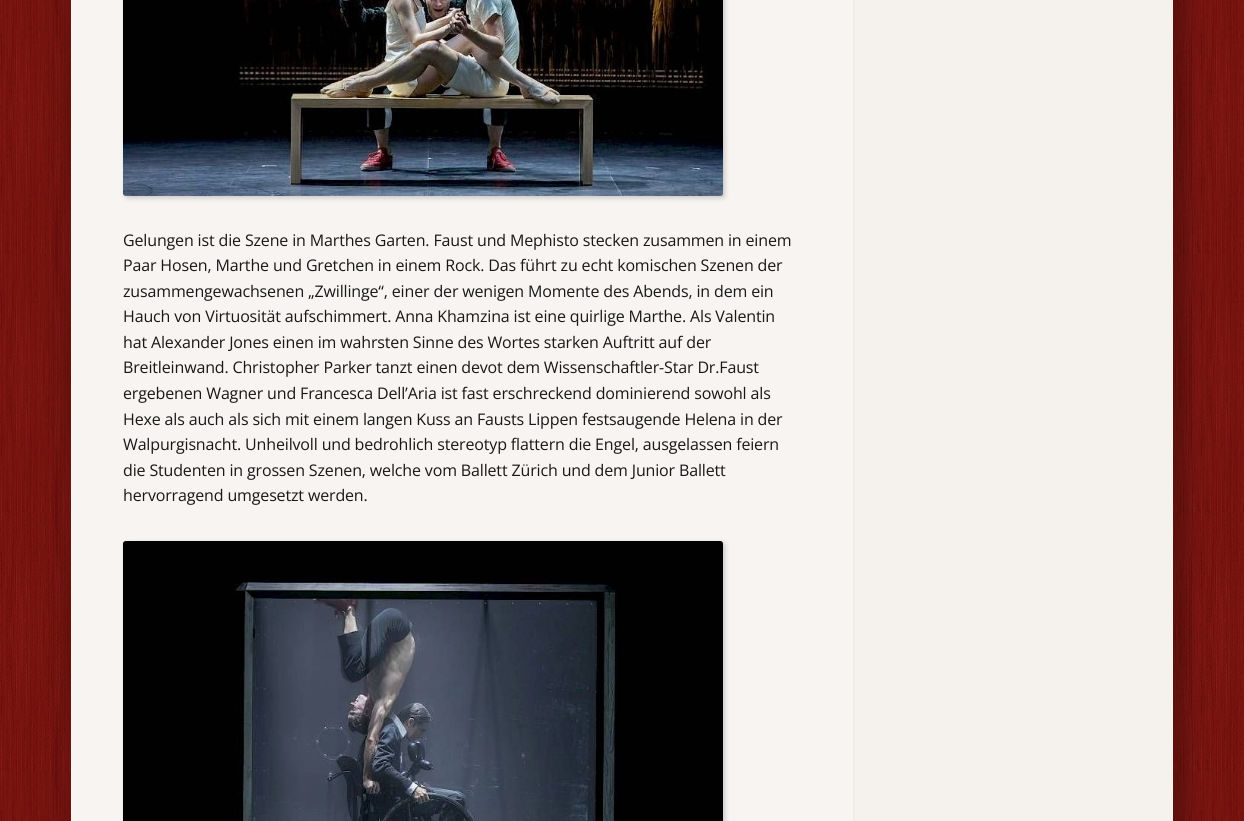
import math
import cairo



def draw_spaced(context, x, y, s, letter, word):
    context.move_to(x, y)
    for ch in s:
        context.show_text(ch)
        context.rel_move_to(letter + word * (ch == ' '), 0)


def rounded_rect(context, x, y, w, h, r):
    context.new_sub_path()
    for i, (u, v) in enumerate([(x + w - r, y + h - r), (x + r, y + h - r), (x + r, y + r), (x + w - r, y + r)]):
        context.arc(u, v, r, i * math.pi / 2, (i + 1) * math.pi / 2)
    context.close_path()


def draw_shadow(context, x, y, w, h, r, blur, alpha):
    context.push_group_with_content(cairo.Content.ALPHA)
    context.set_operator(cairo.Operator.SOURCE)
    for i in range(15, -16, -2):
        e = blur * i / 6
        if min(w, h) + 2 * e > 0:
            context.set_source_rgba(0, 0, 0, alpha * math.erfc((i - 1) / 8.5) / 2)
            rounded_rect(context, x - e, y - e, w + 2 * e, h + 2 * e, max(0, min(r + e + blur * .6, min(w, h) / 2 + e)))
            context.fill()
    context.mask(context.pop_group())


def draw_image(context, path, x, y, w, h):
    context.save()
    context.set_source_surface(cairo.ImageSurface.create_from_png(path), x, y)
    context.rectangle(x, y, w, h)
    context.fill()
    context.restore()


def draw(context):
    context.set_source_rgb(1, 1, 1)
    context.paint()
    draw_image(context, "images/1.png", 0, 0, 1244, 821)
    context.set_source_rgba(0, 0, 0, 0.06)
    context.new_path()
    context.move_to(91, 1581)
    context.line_to(91, 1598)
    context.curve_to(91, 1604, 338, 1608, 642, 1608)
    context.curve_to(946, 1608, 1193, 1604, 1193, 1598)
    context.line_to(1193, -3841)
    context.curve_to(1193, -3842, 1186, -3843, 1173, -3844)
    context.line_to(1173, 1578)
    context.curve_to(1173, 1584, 926, 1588, 622, 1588)
    context.curve_to(369, 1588, 156, 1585, 91, 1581)
    context.close_path()
    context.fill()
    context.set_source_rgb(0, 0, 0)
    draw_shadow(context, 61, -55, 1102, 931, 10, 15, 0.12)
    draw_shadow(context, 81, -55, 1102, 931, 10, 15, 0.19)
    context.set_source_rgb(247 / 255, 244 / 255, 241 / 255)
    context.new_path()
    context.move_to(622, -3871)
    context.curve_to(926, -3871, 1173, -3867, 1173, -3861)
    context.line_to(1173, 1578)
    context.curve_to(1173, 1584, 926, 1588, 622, 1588)
    context.curve_to(318, 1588, 71, 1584, 71, 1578)
    context.line_to(71, -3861)
    context.curve_to(71, -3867, 318, -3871, 622, -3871)
    context.close_path()
    context.fill()
    context.set_source_rgb(0, 0, 0)
    draw_shadow(context, 125, -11, 600, 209, 3, 2.5, 0.19)
    draw_image(context, "images/2.png", 123, 0, 600, 196)
    draw_shadow(context, 125, 543, 600, 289, 3, 2.5, 0.19)
    draw_image(context, "images/3.png", 123, 541, 600, 280)
    context.set_source_rgb(245 / 255, 242 / 255, 238 / 255)
    context.rectangle(855, 0, 318, 821)
    context.fill()
    context.set_source_rgb(239 / 255, 236 / 255, 232 / 255)
    context.rectangle(853, 0, 2, 821)
    context.fill()
    context.select_font_face("Open Sans")
    context.set_font_size(16)
    context.set_source_rgb(24 / 255, 24 / 255, 24 / 255)
    draw_spaced(context, 123, 246, "Gelungen ist die Szene in Marthes Garten. Faust und Mephisto stecken zusammen in einem", -0.15, 0)
    draw_spaced(context, 123, 271, "Paar Hosen, Marthe und Gretchen in einem Rock. Das führt zu echt komischen Szenen der", -0.15, 0)
    draw_spaced(context, 123, 297, "zusammengewachsenen „Zwillinge“, einer der wenigen Momente des Abends, in dem ein", -0.15, 0)
    draw_spaced(context, 123, 322, "Hauch von Virtuosität aufschimmert. Anna Khamzina ist eine quirlige Marthe. Als Valentin", -0.15, 0)
    draw_spaced(context, 123, 348, "hat Alexander Jones einen im wahrsten Sinne des Wortes starken Auftritt auf der", -0.15, 0)
    draw_spaced(context, 123, 373, "Breitleinwand. Christopher Parker tanzt einen devot dem Wissenschaftler-Star Dr.Faust", -0.15, 0)
    draw_spaced(context, 123, 399, "ergebenen Wagner und Francesca Dell’Aria ist fast erschreckend dominierend sowohl als", -0.15, 0)
    draw_spaced(context, 123, 425, "Hexe als auch als sich mit einem langen Kuss an Fausts Lippen festsaugende Helena in der", -0.15, 0)
    draw_spaced(context, 123, 450, "Walpurgisnacht. Unheilvoll und bedrohlich stereotyp flattern die Engel, ausgelassen feiern", -0.15, 0)
    draw_spaced(context, 123, 476, "die Studenten in grossen Szenen, welche vom Ballett Zürich und dem Junior Ballett", -0.15, 0)
    draw_spaced(context, 123, 501, "hervorragend umgesetzt werden.", -0.15, 0)


surface = cairo.ImageSurface(cairo.Format.RGB24, 1244, 821)
context = cairo.Context(surface)
options = cairo.FontOptions()
options.set_hint_metrics(cairo.HintMetrics.OFF)
options.set_hint_style(cairo.HintStyle.NONE)
context.set_font_options(options)
context.set_miter_limit(4)
draw(context)
surface.write_to_png("out.png")
